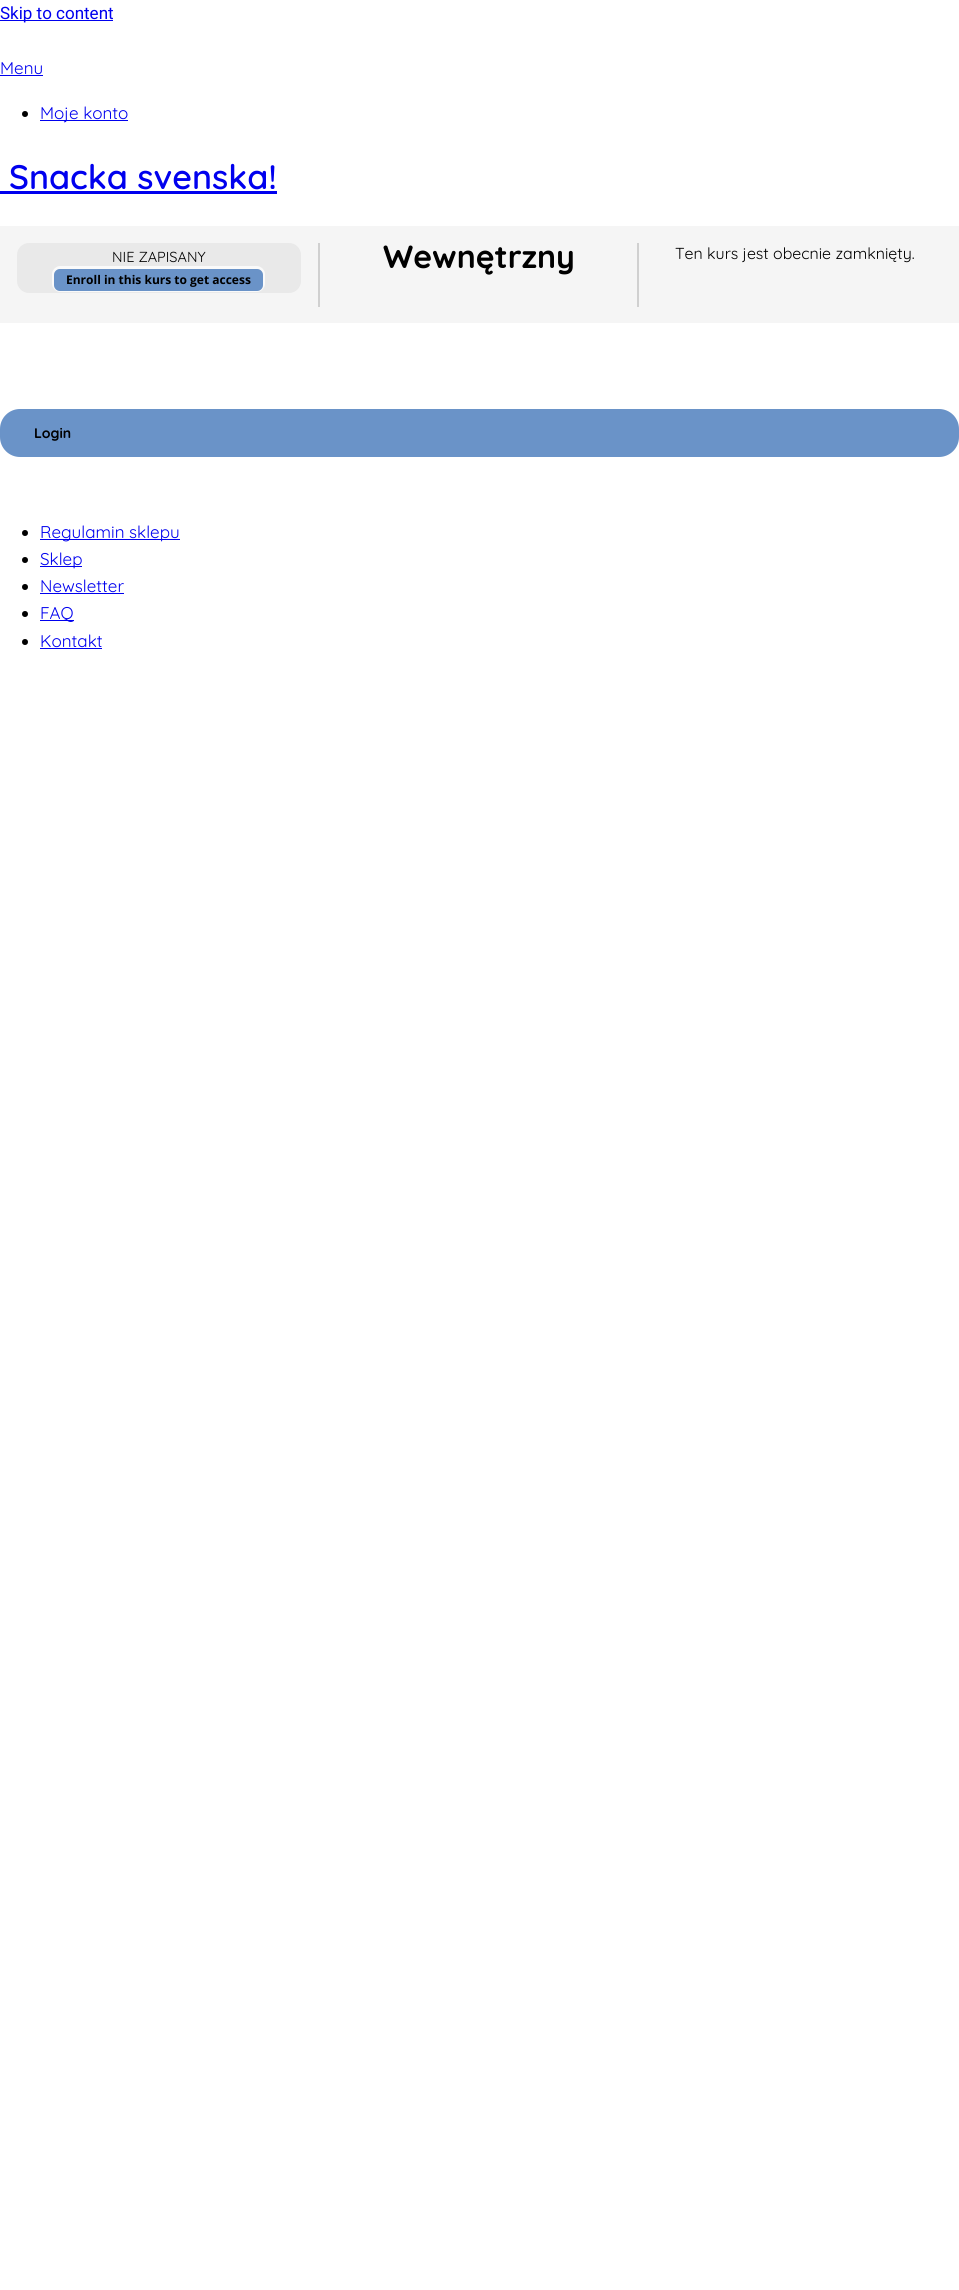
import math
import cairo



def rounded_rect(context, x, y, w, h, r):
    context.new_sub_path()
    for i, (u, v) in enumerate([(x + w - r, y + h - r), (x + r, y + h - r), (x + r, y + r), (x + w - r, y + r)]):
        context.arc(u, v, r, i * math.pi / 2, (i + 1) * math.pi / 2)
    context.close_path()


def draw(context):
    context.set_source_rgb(1, 1, 1)
    context.paint()
    context.set_source_rgb(0, 0, 238 / 255)
    context.rectangle(0, 20, 113, 1)
    context.fill()
    context.rectangle(0, 75, 43, 1)
    context.fill()
    context.set_source_rgb(0, 0, 0)
    context.arc(25, 114, 3, 0, 2 * math.pi)
    context.fill()
    context.set_source_rgb(0, 0, 238 / 255)
    context.rectangle(40, 120, 88, 1)
    context.fill()
    context.rectangle(0, 191, 277, 3)
    context.fill()
    context.set_source_rgb(245 / 255, 245 / 255, 245 / 255)
    context.rectangle(0, 226, 959, 97)
    context.fill()
    context.set_source_rgb(208 / 255, 208 / 255, 208 / 255)
    context.rectangle(318, 243, 2, 64)
    context.fill()
    context.set_source_rgb(233 / 255, 233 / 255, 233 / 255)
    rounded_rect(context, 17, 243, 284, 50, 12)
    context.fill()
    context.set_source_rgb(250 / 255, 250 / 255, 250 / 255)
    context.set_fill_rule(cairo.FillRule.EVEN_ODD)
    context.new_path()
    context.move_to(60, 266)
    context.curve_to(56, 266, 52, 270, 52, 274)
    context.line_to(52, 284)
    context.curve_to(52, 288, 56, 292, 60, 292)
    context.line_to(257, 292)
    context.curve_to(261, 292, 265, 288, 265, 284)
    context.line_to(265, 274)
    context.curve_to(265, 270, 261, 266, 257, 266)
    context.close_path()
    context.move_to(60, 269)
    context.curve_to(57, 269, 54, 272, 54, 275)
    context.line_to(54, 285)
    context.curve_to(54, 288, 57, 291, 60, 291)
    context.line_to(257, 291)
    context.curve_to(260, 291, 263, 288, 263, 285)
    context.line_to(263, 275)
    context.curve_to(263, 272, 260, 269, 257, 269)
    context.close_path()
    context.fill()
    context.set_source_rgb(106 / 255, 147 / 255, 200 / 255)
    rounded_rect(context, 54, 269, 209, 22, 6)
    context.fill()
    context.set_source_rgb(208 / 255, 208 / 255, 208 / 255)
    context.rectangle(637, 243, 2, 64)
    context.fill()
    context.set_source_rgb(106 / 255, 147 / 255, 200 / 255)
    rounded_rect(context, 0, 409, 959, 48, 20)
    context.fill()
    context.set_source_rgb(0, 0, 0)
    context.arc(25, 533, 3, 0, 2 * math.pi)
    context.fill()
    context.set_source_rgb(0, 0, 238 / 255)
    context.rectangle(40, 539, 140, 1)
    context.fill()
    context.set_source_rgb(0, 0, 0)
    context.arc(25, 560, 3, 0, 2 * math.pi)
    context.fill()
    context.set_source_rgb(0, 0, 238 / 255)
    context.rectangle(40, 566, 42, 1)
    context.fill()
    context.set_source_rgb(0, 0, 0)
    context.arc(25, 587, 3, 0, 2 * math.pi)
    context.fill()
    context.set_source_rgb(0, 0, 238 / 255)
    context.rectangle(40, 593, 84, 1)
    context.fill()
    context.set_source_rgb(0, 0, 0)
    context.arc(25, 614, 3, 0, 2 * math.pi)
    context.fill()
    context.set_source_rgb(0, 0, 238 / 255)
    context.rectangle(40, 620, 34, 1)
    context.fill()
    context.set_source_rgb(0, 0, 0)
    context.arc(25, 642, 3, 0, 2 * math.pi)
    context.fill()
    context.set_source_rgb(0, 0, 238 / 255)
    context.rectangle(40, 648, 62, 1)
    context.fill()
    context.select_font_face("Roboto")
    context.set_font_size(17)
    context.move_to(0, 19)
    context.show_text("Skip to content")
    context.select_font_face("Quicksand")
    context.move_to(0, 74)
    context.show_text("Menu")
    context.move_to(40, 119)
    context.show_text("Moje konto")
    context.select_font_face("Quicksand SemiBold")
    context.set_font_size(34)
    context.move_to(9, 189)
    context.show_text("Snacka svenska!")
    context.select_font_face("Quicksand")
    context.set_font_size(14.5)
    context.set_source_rgb(0, 0, 0)
    context.move_to(112, 262)
    context.show_text("NIE ZAPISANY")
    context.select_font_face("Open Sans", cairo.FontSlant.NORMAL, cairo.FontWeight.BOLD)
    context.set_font_size(12)
    context.move_to(66, 284)
    context.show_text("Enroll in this kurs to get access")
    context.select_font_face("Quicksand", cairo.FontSlant.NORMAL, cairo.FontWeight.BOLD)
    context.set_font_size(32)
    context.move_to(383, 268)
    context.show_text("Wewnętrzny")
    context.select_font_face("Quicksand")
    context.set_font_size(15.9)
    context.move_to(675, 259)
    context.show_text("Ten kurs jest obecnie zamknięty.")
    context.select_font_face("Quicksand", cairo.FontSlant.NORMAL, cairo.FontWeight.BOLD)
    context.set_font_size(14)
    context.move_to(34, 438)
    context.show_text("Login")
    context.select_font_face("Quicksand")
    context.set_font_size(17)
    context.set_source_rgb(0, 0, 238 / 255)
    context.move_to(40, 538)
    context.show_text("Regulamin sklepu")
    context.move_to(40, 565)
    context.show_text("Sklep")
    context.move_to(40, 592)
    context.show_text("Newsletter")
    context.move_to(40, 619)
    context.show_text("FAQ")
    context.move_to(40, 647)
    context.show_text("Kontakt")


surface = cairo.ImageSurface(cairo.Format.RGB24, 959, 2290)
context = cairo.Context(surface)
options = cairo.FontOptions()
options.set_hint_metrics(cairo.HintMetrics.OFF)
options.set_hint_style(cairo.HintStyle.NONE)
context.set_font_options(options)
context.set_miter_limit(4)
draw(context)
surface.write_to_png("out.png")
